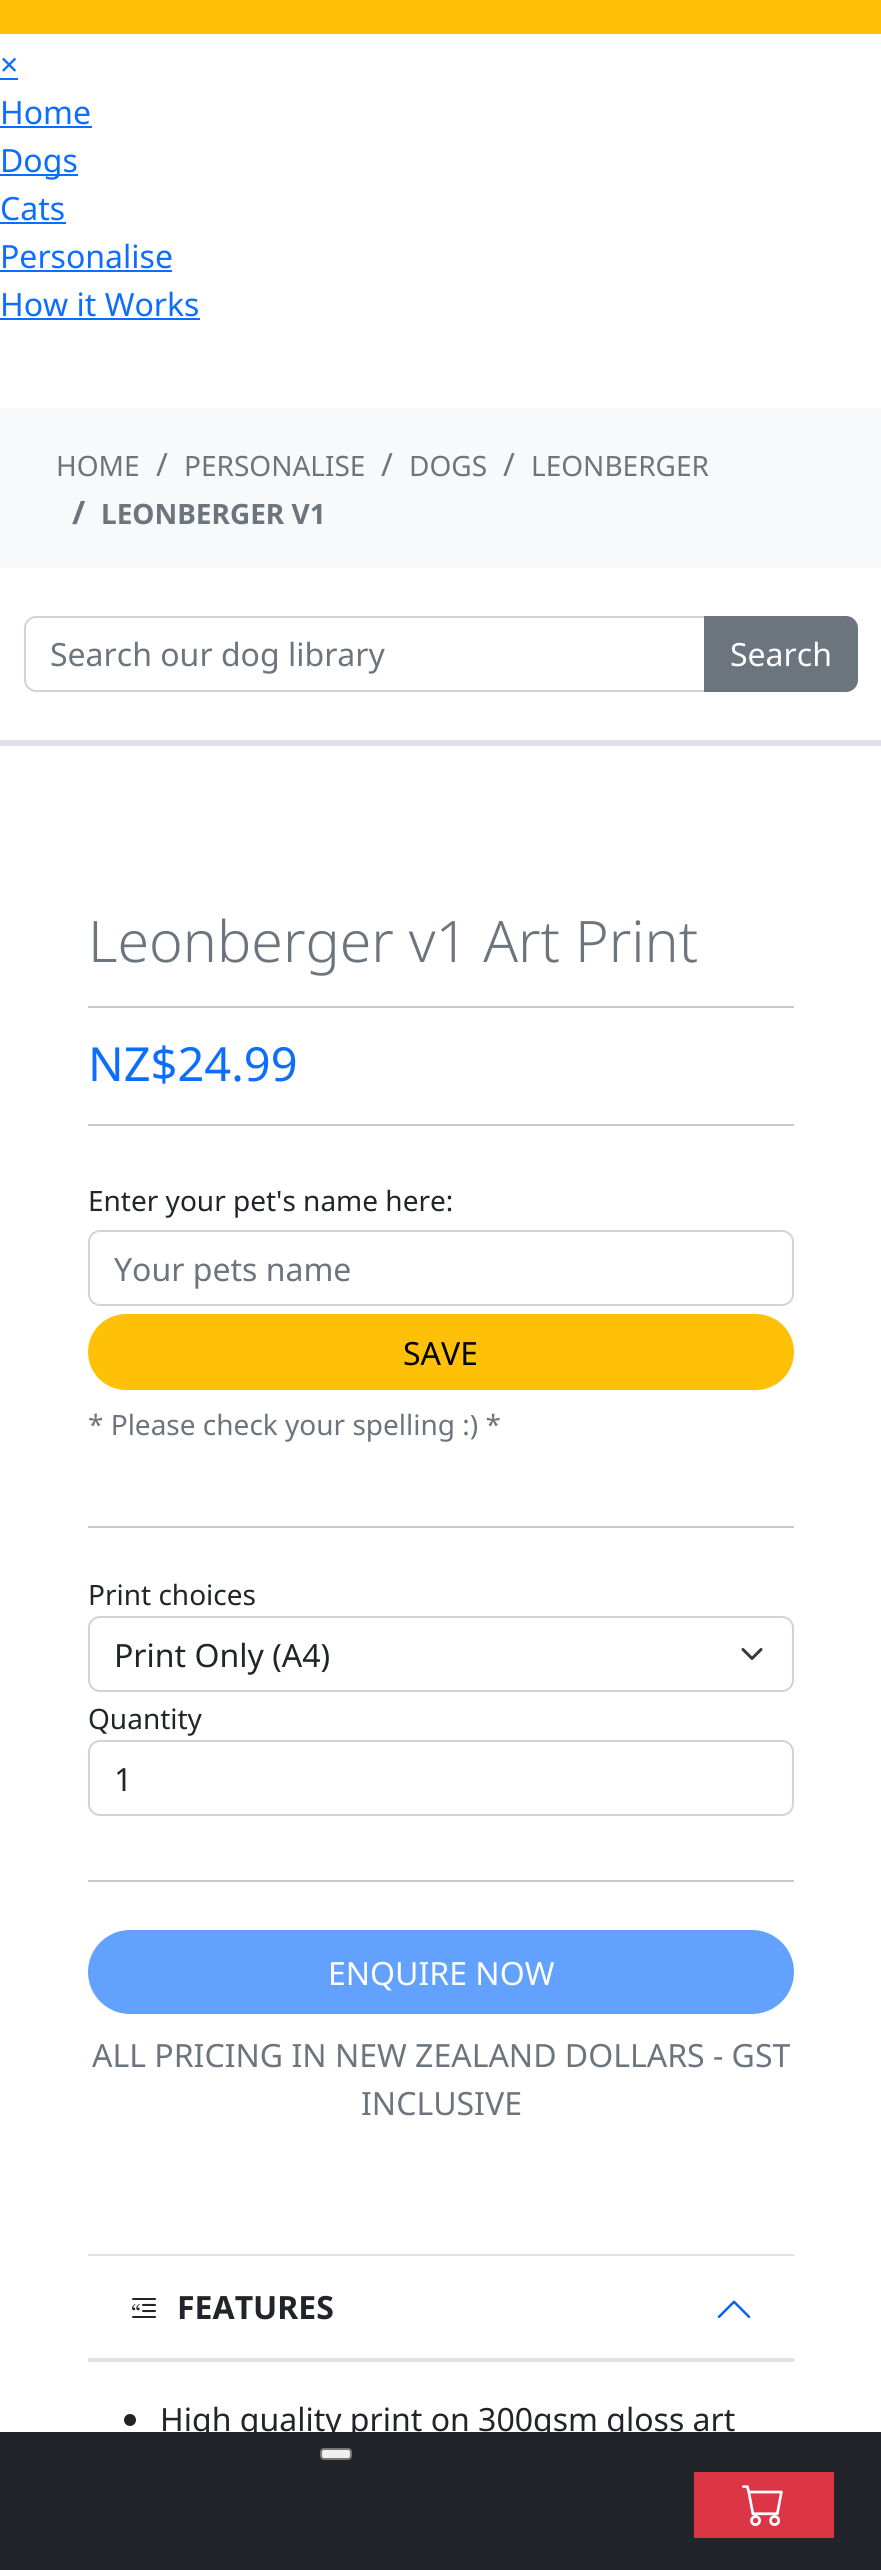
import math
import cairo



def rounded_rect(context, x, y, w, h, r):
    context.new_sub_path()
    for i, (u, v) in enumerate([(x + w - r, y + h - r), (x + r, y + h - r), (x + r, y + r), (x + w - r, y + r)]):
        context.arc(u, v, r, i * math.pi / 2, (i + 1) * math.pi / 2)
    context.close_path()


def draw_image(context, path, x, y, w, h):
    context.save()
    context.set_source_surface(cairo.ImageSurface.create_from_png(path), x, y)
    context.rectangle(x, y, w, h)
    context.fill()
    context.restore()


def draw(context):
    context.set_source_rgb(1, 1, 1)
    context.paint()
    context.set_source_rgb(1, 193 / 255, 7 / 255)
    context.rectangle(0, 0, 881, 34)
    context.fill()
    context.set_source_rgb(13 / 255, 110 / 255, 253 / 255)
    context.rectangle(0, 78, 18, 2)
    context.fill()
    context.rectangle(0, 126, 92, 2)
    context.fill()
    context.rectangle(0, 174, 78, 2)
    context.fill()
    context.rectangle(0, 222, 66, 2)
    context.fill()
    context.rectangle(0, 270, 172, 2)
    context.fill()
    context.rectangle(0, 318, 200, 2)
    context.fill()
    context.set_source_rgb(33 / 255, 37 / 255, 41 / 255)
    context.rectangle(0, 2432, 881, 138)
    context.fill()
    context.set_source_rgb(239 / 255, 239 / 255, 239 / 255)
    rounded_rect(context, 321, 2449, 30, 10, 3)
    context.fill_preserve()
    context.set_source_rgb(118 / 255, 118 / 255, 118 / 255)
    context.stroke()
    context.set_source_rgb(220 / 255, 53 / 255, 69 / 255)
    context.rectangle(694, 2472, 140, 66)
    context.fill()
    draw_image(context, "images/1.png", 742, 2485, 41, 41)
    context.set_source_rgb(248 / 255, 249 / 255, 250 / 255)
    context.rectangle(0, 408, 881, 160)
    context.fill()
    context.set_source_rgb(222 / 255, 226 / 255, 230 / 255)
    context.rectangle(0, 740, 881, 6)
    context.fill()
    context.new_path()
    context.move_to(36, 617)
    context.line_to(705, 617)
    context.line_to(705, 691)
    context.line_to(36, 691)
    context.curve_to(30, 691, 25, 686, 25, 680)
    context.line_to(25, 628)
    context.curve_to(25, 622, 30, 617, 36, 617)
    context.close_path()
    context.set_source_rgb(206 / 255, 212 / 255, 218 / 255)
    context.stroke()
    context.set_source_rgb(108 / 255, 117 / 255, 125 / 255)
    context.new_path()
    context.move_to(705, 617)
    context.line_to(846, 617)
    context.curve_to(852, 617, 857, 622, 857, 628)
    context.line_to(857, 680)
    context.curve_to(857, 686, 852, 691, 846, 691)
    context.line_to(705, 691)
    context.close_path()
    context.fill_preserve()
    context.stroke()
    context.set_source_rgb(200 / 255, 201 / 255, 202 / 255)
    context.rectangle(88, 1006, 706, 2)
    context.fill()
    context.rectangle(88, 1124, 706, 2)
    context.fill()
    rounded_rect(context, 89, 1231, 704, 74, 11)
    context.set_source_rgb(206 / 255, 212 / 255, 218 / 255)
    context.stroke()
    context.set_source_rgb(1, 193 / 255, 7 / 255)
    rounded_rect(context, 89, 1315, 704, 74, 37)
    context.fill_preserve()
    context.stroke()
    context.set_source_rgb(200 / 255, 201 / 255, 202 / 255)
    context.rectangle(88, 1526, 706, 2)
    context.fill()
    context.new_path()
    context.move_to(743, 1649.5)
    context.line_to(752, 1658.5)
    context.line_to(761, 1649.5)
    context.set_source_rgb(52 / 255, 58 / 255, 64 / 255)
    context.set_line_width(3)
    context.set_line_cap(cairo.LineCap.ROUND)
    context.set_line_join(cairo.LineJoin.ROUND)
    context.stroke()
    rounded_rect(context, 89, 1617, 704, 74, 11)
    context.set_source_rgb(206 / 255, 212 / 255, 218 / 255)
    context.set_line_width(2)
    context.set_line_cap(cairo.LineCap.BUTT)
    context.set_line_join(cairo.LineJoin.MITER)
    context.stroke()
    rounded_rect(context, 89, 1741, 704, 74, 11)
    context.stroke()
    context.set_source_rgb(200 / 255, 201 / 255, 202 / 255)
    context.rectangle(88, 1880, 706, 2)
    context.fill()
    context.set_source_rgb(98 / 255, 161 / 255, 254 / 255)
    rounded_rect(context, 89, 1931, 704, 82, 41)
    context.fill_preserve()
    context.stroke()
    context.set_source_rgb(222 / 255, 226 / 255, 230 / 255)
    context.rectangle(88, 2358, 706, 4)
    context.fill()
    context.rectangle(88, 2254, 706, 2)
    context.fill()
    draw_image(context, "images/2.png", 132, 2298, 24, 20)
    draw_image(context, "images/3.png", 717, 2300, 34, 18)
    context.set_source_rgb(33 / 255, 37 / 255, 41 / 255)
    context.arc(130, 2420, 6, 0, 2 * math.pi)
    context.fill()
    context.select_font_face("Noto Sans")
    context.set_font_size(32)
    context.set_source_rgb(13 / 255, 110 / 255, 253 / 255)
    context.move_to(0, 76)
    context.show_text("×")
    context.move_to(0, 124)
    context.show_text("Home")
    context.move_to(0, 172)
    context.show_text("Dogs")
    context.move_to(0, 220)
    context.show_text("Cats")
    context.move_to(0, 268)
    context.show_text("Personalise")
    context.move_to(0, 316)
    context.show_text("How it Works")
    context.set_font_size(28)
    context.set_source_rgb(108 / 255, 117 / 255, 125 / 255)
    context.move_to(56, 476)
    context.show_text("HOME")
    context.set_font_size(32)
    context.move_to(156, 476)
    context.show_text("/")
    context.set_font_size(28)
    context.move_to(184, 476)
    context.show_text("PERSONALISE")
    context.set_font_size(32)
    context.move_to(381, 476)
    context.show_text("/")
    context.set_font_size(28)
    context.move_to(409, 476)
    context.show_text("DOGS")
    context.set_font_size(32)
    context.move_to(503, 476)
    context.show_text("/")
    context.set_font_size(28)
    context.move_to(531, 476)
    context.show_text("LEONBERGER")
    context.select_font_face("Noto Sans", cairo.FontSlant.NORMAL, cairo.FontWeight.BOLD)
    context.set_font_size(32)
    context.move_to(72, 524)
    context.show_text("/")
    context.set_font_size(28)
    context.move_to(101, 524)
    context.show_text("LEONBERGER V1")
    context.select_font_face("Noto Sans")
    context.set_font_size(32)
    context.move_to(50, 666)
    context.show_text("Search our dog library")
    context.set_source_rgb(1, 1, 1)
    context.move_to(730, 666)
    context.show_text("Search")
    context.select_font_face("Noto Sans Light")
    context.set_font_size(57.25)
    context.set_source_rgb(108 / 255, 117 / 255, 125 / 255)
    context.move_to(88, 962)
    context.show_text("Leonberger v1 Art Print")
    context.select_font_face("Noto Sans")
    context.set_font_size(47)
    context.set_source_rgb(13 / 255, 110 / 255, 253 / 255)
    context.move_to(88, 1081)
    context.show_text("NZ$24.99")
    context.set_font_size(28)
    context.set_source_rgb(33 / 255, 37 / 255, 41 / 255)
    context.move_to(88, 1211)
    context.show_text("Enter your pet's name here:")
    context.set_font_size(32)
    context.set_source_rgb(108 / 255, 117 / 255, 125 / 255)
    context.move_to(114, 1281)
    context.show_text("Your pets name")
    context.set_source_rgb(0, 0, 0)
    context.move_to(403, 1365)
    context.show_text("SAVE")
    context.set_font_size(28)
    context.set_source_rgb(108 / 255, 117 / 255, 125 / 255)
    context.move_to(88, 1435)
    context.show_text("* Please check your spelling :) *")
    context.set_source_rgb(33 / 255, 37 / 255, 41 / 255)
    context.move_to(88, 1605)
    context.show_text("Print choices")
    context.set_font_size(32)
    context.move_to(114, 1667)
    context.show_text("Print Only (A4)")
    context.set_font_size(28)
    context.move_to(88, 1729)
    context.show_text("Quantity")
    context.set_font_size(32)
    context.move_to(114, 1791)
    context.show_text("1")
    context.set_source_rgb(1, 1, 1)
    context.move_to(328, 1985)
    context.show_text("ENQUIRE NOW")
    context.set_source_rgb(108 / 255, 117 / 255, 125 / 255)
    context.move_to(92, 2067)
    context.show_text("ALL PRICING IN NEW ZEALAND DOLLARS - GST")
    context.move_to(361, 2115)
    context.show_text("INCLUSIVE")
    context.select_font_face("Noto Sans", cairo.FontSlant.NORMAL, cairo.FontWeight.BOLD)
    context.set_source_rgb(33 / 255, 37 / 255, 41 / 255)
    context.move_to(177, 2319)
    context.show_text("FEATURES")
    context.select_font_face("Noto Sans")
    context.move_to(160, 2431)
    context.show_text("High quality print on 300gsm gloss art")


surface = cairo.ImageSurface(cairo.Format.RGB24, 881, 2570)
context = cairo.Context(surface)
options = cairo.FontOptions()
options.set_hint_metrics(cairo.HintMetrics.OFF)
options.set_hint_style(cairo.HintStyle.NONE)
context.set_font_options(options)
context.set_miter_limit(4)
draw(context)
surface.write_to_png("out.png")
